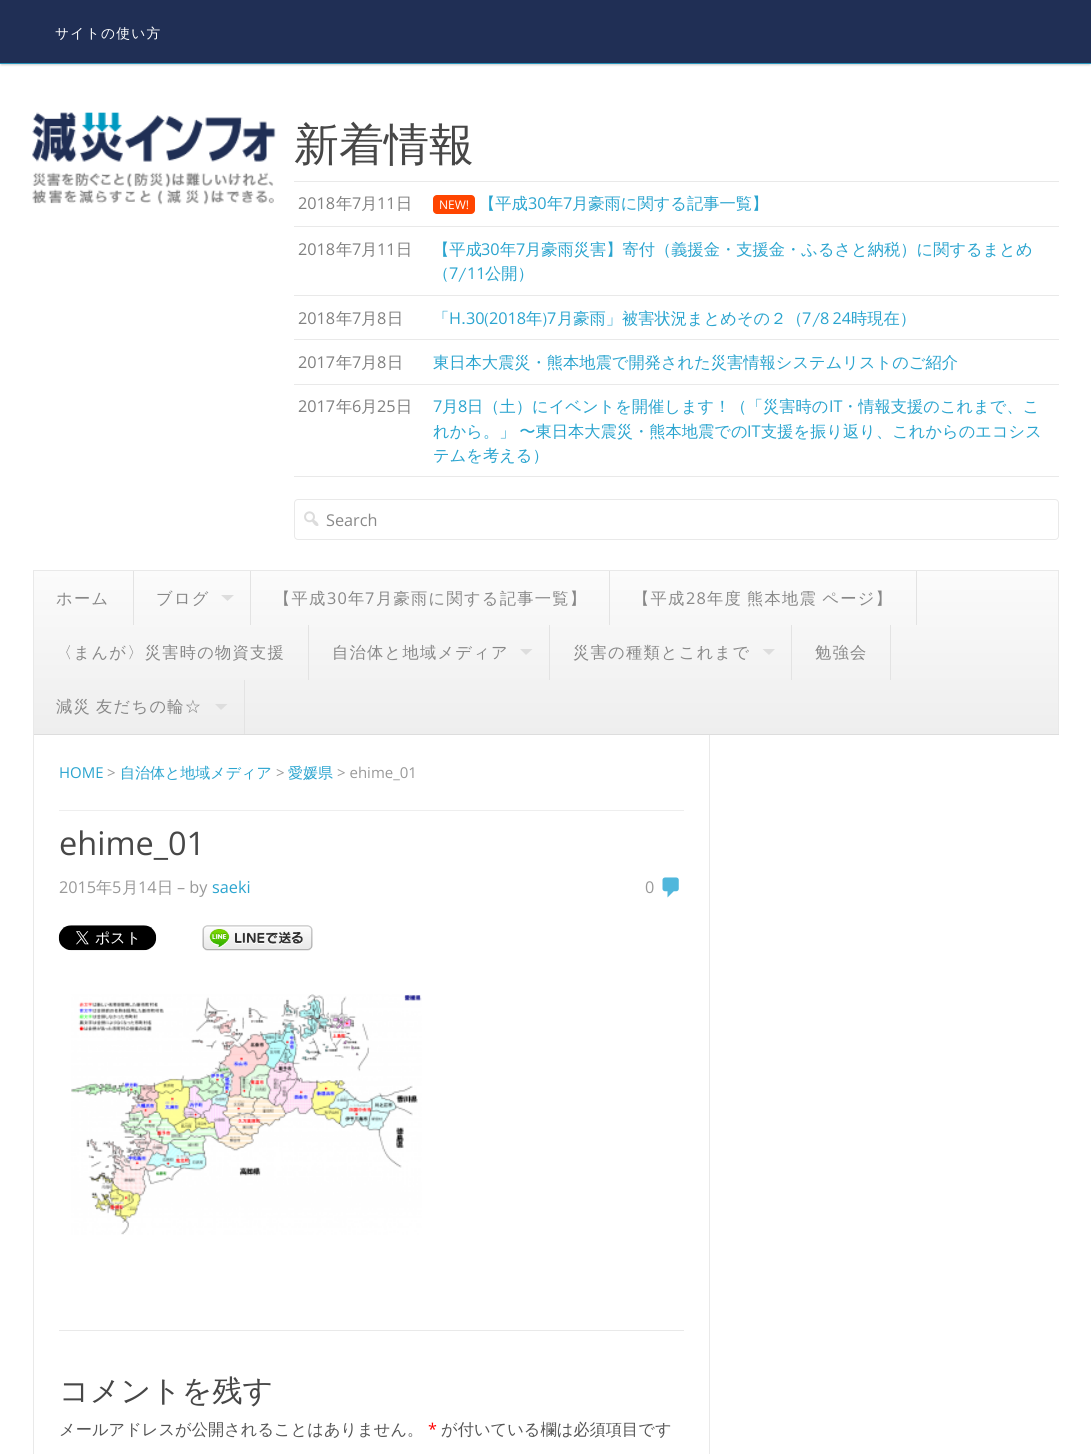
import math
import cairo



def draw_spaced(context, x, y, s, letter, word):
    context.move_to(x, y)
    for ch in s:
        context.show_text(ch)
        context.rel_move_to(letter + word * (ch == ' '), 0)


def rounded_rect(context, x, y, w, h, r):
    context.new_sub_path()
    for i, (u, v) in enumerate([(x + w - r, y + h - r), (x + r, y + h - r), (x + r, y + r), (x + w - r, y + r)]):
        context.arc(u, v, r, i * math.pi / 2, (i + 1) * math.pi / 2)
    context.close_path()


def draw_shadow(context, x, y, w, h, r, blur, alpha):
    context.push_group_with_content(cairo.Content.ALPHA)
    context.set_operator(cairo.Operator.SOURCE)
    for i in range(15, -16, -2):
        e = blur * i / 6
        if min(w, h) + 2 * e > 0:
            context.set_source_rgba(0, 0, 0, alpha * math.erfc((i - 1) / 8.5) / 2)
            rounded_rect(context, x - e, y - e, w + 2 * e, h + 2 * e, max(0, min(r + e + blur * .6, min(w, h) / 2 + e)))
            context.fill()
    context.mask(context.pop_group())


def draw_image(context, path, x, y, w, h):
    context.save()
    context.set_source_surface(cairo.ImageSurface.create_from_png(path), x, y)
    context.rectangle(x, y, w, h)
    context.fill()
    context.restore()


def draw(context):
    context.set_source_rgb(1, 1, 1)
    context.paint()
    context.set_source_rgb(0, 0, 0)
    draw_shadow(context, 1, -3, 1089, 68, 0, 1, 0.2)
    context.set_source_rgb(32 / 255, 47 / 255, 85 / 255)
    context.rectangle(0, 0, 1091, 63)
    context.fill()
    context.set_source_rgb(38 / 255, 147 / 255, 186 / 255)
    context.rectangle(0, 63, 1091, 1)
    context.fill()
    draw_image(context, "images/1.png", 32, 112, 244, 93)
    context.set_source_rgb(233 / 255, 233 / 255, 233 / 255)
    context.rectangle(294, 181, 765, 1)
    context.fill()
    context.set_source_rgb(1, 69 / 255, 0)
    rounded_rect(context, 433, 195, 42, 19, 4)
    context.fill()
    context.set_source_rgb(233 / 255, 233 / 255, 233 / 255)
    context.rectangle(294, 226, 765, 1)
    context.fill()
    context.rectangle(294, 295, 765, 1)
    context.fill()
    context.rectangle(294, 339, 765, 1)
    context.fill()
    context.rectangle(294, 384, 765, 1)
    context.fill()
    context.rectangle(294, 476, 765, 1)
    context.fill()
    rounded_rect(context, 294.5, 499.5, 764, 40, 3.5)
    context.set_line_width(1)
    context.stroke()
    draw_image(context, "images/2.png", 304, 511, 15, 15)
    gradient = cairo.LinearGradient(546, 571, 546, 734)
    gradient.add_color_stop_rgba(0, 251 / 255, 251 / 255, 251 / 255, 1)
    gradient.add_color_stop_rgba(1, 238 / 255, 238 / 255, 238 / 255, 1)
    context.set_source(gradient)
    context.rectangle(34, 571, 1024, 163)
    context.fill()
    context.set_source_rgb(233 / 255, 233 / 255, 233 / 255)
    context.rectangle(33, 570, 1026, 1)
    context.fill()
    context.rectangle(1058, 570, 1, 165)
    context.fill()
    context.rectangle(33.5, 734.5, 676, 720)
    context.stroke()
    context.set_source_rgb(221 / 255, 221 / 255, 221 / 255)
    context.rectangle(33, 734, 1026, 1)
    context.fill()
    context.set_source_rgb(233 / 255, 233 / 255, 233 / 255)
    context.rectangle(33, 570, 1, 165)
    context.fill()
    context.set_source_rgb(227 / 255, 227 / 255, 227 / 255)
    context.rectangle(133, 571, 1, 54)
    context.fill()
    context.rectangle(250, 571, 1, 54)
    context.fill()
    context.set_source_rgb(221 / 255, 221 / 255, 221 / 255)
    context.new_path()
    context.move_to(221, 595)
    context.line_to(234, 595)
    context.line_to(227.5, 601)
    context.close_path()
    context.fill()
    context.set_source_rgb(227 / 255, 227 / 255, 227 / 255)
    context.rectangle(609, 571, 1, 54)
    context.fill()
    context.rectangle(916, 571, 1, 54)
    context.fill()
    context.rectangle(308, 625, 1, 55)
    context.fill()
    context.rectangle(549, 625, 1, 55)
    context.fill()
    context.set_source_rgb(221 / 255, 221 / 255, 221 / 255)
    context.new_path()
    context.move_to(520, 649)
    context.line_to(532.5, 649)
    context.line_to(526, 655)
    context.close_path()
    context.fill()
    context.set_source_rgb(227 / 255, 227 / 255, 227 / 255)
    context.rectangle(791, 625, 1, 55)
    context.fill()
    context.set_source_rgb(221 / 255, 221 / 255, 221 / 255)
    context.new_path()
    context.move_to(762.5, 649)
    context.line_to(775, 649)
    context.line_to(769, 655)
    context.close_path()
    context.fill()
    context.set_source_rgb(227 / 255, 227 / 255, 227 / 255)
    context.rectangle(890, 625, 1, 55)
    context.fill()
    context.rectangle(244, 680, 1, 54)
    context.fill()
    context.set_source_rgb(221 / 255, 221 / 255, 221 / 255)
    context.new_path()
    context.move_to(215, 704)
    context.line_to(227.5, 704)
    context.line_to(221, 710)
    context.close_path()
    context.fill()
    context.set_source_rgb(233 / 255, 233 / 255, 233 / 255)
    context.rectangle(59, 1330, 625, 1)
    context.fill()
    context.set_source_rgb(238 / 255, 238 / 255, 238 / 255)
    context.rectangle(59, 810, 625, 1)
    context.fill()
    draw_image(context, "images/3.png", 662, 877, 17, 21)
    draw_image(context, "images/4.png", 58, 925, 99, 26)
    draw_image(context, "images/5.png", 202, 925, 111, 26)
    draw_image(context, "images/6.png", 71, 994, 351, 241)
    context.select_font_face("WenQuanYi Zen Hei Medium")
    context.set_font_size(13.75)
    context.set_source_rgb(1, 1, 1)
    draw_spaced(context, 55, 38, "サイトの使い方", 1.25, 0)
    context.set_font_size(45)
    context.set_source_rgb(71 / 255, 71 / 255, 71 / 255)
    context.move_to(294, 160)
    context.show_text("新着情報")
    context.select_font_face("Open Sans")
    context.set_font_size(16.25)
    context.set_source_rgb(128 / 255, 128 / 255, 128 / 255)
    context.move_to(298, 209)
    context.show_text("2018")
    context.select_font_face("WenQuanYi Zen Hei Medium")
    context.move_to(336, 209)
    context.show_text("年")
    context.select_font_face("Open Sans")
    context.move_to(352, 209)
    context.show_text("7")
    context.select_font_face("WenQuanYi Zen Hei Medium")
    context.move_to(361, 209)
    context.show_text("月")
    context.select_font_face("Open Sans")
    context.move_to(377, 209)
    context.show_text("11")
    context.select_font_face("WenQuanYi Zen Hei Medium")
    context.move_to(396, 209)
    context.show_text("日")
    context.select_font_face("Open Sans")
    context.set_font_size(12)
    context.set_source_rgb(1, 1, 1)
    context.move_to(439, 209)
    context.show_text("NEW!")
    context.select_font_face("WenQuanYi Zen Hei Medium")
    context.set_font_size(16.25)
    context.set_source_rgb(42 / 255, 164 / 255, 207 / 255)
    context.move_to(479, 209)
    context.show_text("【平成")
    context.select_font_face("Open Sans")
    context.move_to(528, 209)
    context.show_text("30")
    context.select_font_face("WenQuanYi Zen Hei Medium")
    context.move_to(547, 209)
    context.show_text("年")
    context.select_font_face("Open Sans")
    context.move_to(563, 209)
    context.show_text("7")
    context.select_font_face("WenQuanYi Zen Hei Medium")
    context.move_to(572, 209)
    context.show_text("月豪雨に関する記事一覧】")
    context.select_font_face("Open Sans")
    context.set_source_rgb(128 / 255, 128 / 255, 128 / 255)
    context.move_to(298, 255)
    context.show_text("2018")
    context.select_font_face("WenQuanYi Zen Hei Medium")
    context.move_to(336, 255)
    context.show_text("年")
    context.select_font_face("Open Sans")
    context.move_to(352, 255)
    context.show_text("7")
    context.select_font_face("WenQuanYi Zen Hei Medium")
    context.move_to(361, 255)
    context.show_text("月")
    context.select_font_face("Open Sans")
    context.move_to(377, 255)
    context.show_text("11")
    context.select_font_face("WenQuanYi Zen Hei Medium")
    context.move_to(396, 255)
    context.show_text("日")
    context.set_source_rgb(42 / 255, 164 / 255, 207 / 255)
    context.move_to(433, 255)
    context.show_text("【平成")
    context.select_font_face("Open Sans")
    context.move_to(481, 255)
    context.show_text("30")
    context.select_font_face("WenQuanYi Zen Hei Medium")
    context.move_to(500, 255)
    context.show_text("年")
    context.select_font_face("Open Sans")
    context.move_to(516, 255)
    context.show_text("7")
    context.select_font_face("WenQuanYi Zen Hei Medium")
    context.move_to(525, 255)
    context.show_text("月豪雨災害】寄付（義援金・支援金・ふるさと納税）に関するまとめ")
    context.move_to(433, 279)
    context.show_text("（")
    context.select_font_face("Open Sans")
    context.move_to(449, 279)
    context.show_text("7")
    context.select_font_face("WenQuanYi Zen Hei Medium")
    context.move_to(458, 279)
    context.show_text("/")
    context.select_font_face("Open Sans")
    context.move_to(467, 279)
    context.show_text("11")
    context.select_font_face("WenQuanYi Zen Hei Medium")
    context.move_to(485, 279)
    context.show_text("公開）")
    context.select_font_face("Open Sans")
    context.set_source_rgb(128 / 255, 128 / 255, 128 / 255)
    context.move_to(298, 324)
    context.show_text("2018")
    context.select_font_face("WenQuanYi Zen Hei Medium")
    context.move_to(336, 324)
    context.show_text("年")
    context.select_font_face("Open Sans")
    context.move_to(352, 324)
    context.show_text("7")
    context.select_font_face("WenQuanYi Zen Hei Medium")
    context.move_to(361, 324)
    context.show_text("月")
    context.select_font_face("Open Sans")
    context.move_to(377, 324)
    context.show_text("8")
    context.select_font_face("WenQuanYi Zen Hei Medium")
    context.move_to(387, 324)
    context.show_text("日")
    context.set_source_rgb(42 / 255, 164 / 255, 207 / 255)
    context.move_to(433, 324)
    context.show_text("「")
    context.select_font_face("Open Sans")
    context.move_to(449, 324)
    context.show_text("H")
    context.select_font_face("WenQuanYi Zen Hei Medium")
    context.move_to(461, 324)
    context.show_text(".")
    context.select_font_face("Open Sans")
    context.move_to(466, 324)
    context.show_text("30")
    context.select_font_face("WenQuanYi Zen Hei Medium")
    context.move_to(484, 324)
    context.show_text("(")
    context.select_font_face("Open Sans")
    context.move_to(489, 324)
    context.show_text("2018")
    context.select_font_face("WenQuanYi Zen Hei Medium")
    context.move_to(526, 324)
    context.show_text("年)")
    context.select_font_face("Open Sans")
    context.move_to(547, 324)
    context.show_text("7")
    context.select_font_face("WenQuanYi Zen Hei Medium")
    context.move_to(557, 324)
    context.show_text("月豪雨」被害状況まとめその２（")
    context.select_font_face("Open Sans")
    context.move_to(802, 324)
    context.show_text("7")
    context.select_font_face("WenQuanYi Zen Hei Medium")
    context.move_to(812, 324)
    context.show_text("/")
    context.select_font_face("Open Sans")
    draw_spaced(context, 820, 324, "8 24", 0, -1)
    context.select_font_face("WenQuanYi Zen Hei Medium")
    context.move_to(851, 324)
    context.show_text("時現在）")
    context.select_font_face("Open Sans")
    context.set_source_rgb(128 / 255, 128 / 255, 128 / 255)
    context.move_to(298, 368)
    context.show_text("2017")
    context.select_font_face("WenQuanYi Zen Hei Medium")
    context.move_to(336, 368)
    context.show_text("年")
    context.select_font_face("Open Sans")
    context.move_to(352, 368)
    context.show_text("7")
    context.select_font_face("WenQuanYi Zen Hei Medium")
    context.move_to(361, 368)
    context.show_text("月")
    context.select_font_face("Open Sans")
    context.move_to(377, 368)
    context.show_text("8")
    context.select_font_face("WenQuanYi Zen Hei Medium")
    context.move_to(387, 368)
    context.show_text("日")
    context.set_source_rgb(42 / 255, 164 / 255, 207 / 255)
    context.move_to(433, 368)
    context.show_text("東日本大震災・熊本地震で開発された災害情報システムリストのご紹介")
    context.select_font_face("Open Sans")
    context.set_source_rgb(128 / 255, 128 / 255, 128 / 255)
    context.move_to(298, 412)
    context.show_text("2017")
    context.select_font_face("WenQuanYi Zen Hei Medium")
    context.move_to(336, 412)
    context.show_text("年")
    context.select_font_face("Open Sans")
    context.move_to(352, 412)
    context.show_text("6")
    context.select_font_face("WenQuanYi Zen Hei Medium")
    context.move_to(361, 412)
    context.show_text("月")
    context.select_font_face("Open Sans")
    context.move_to(377, 412)
    context.show_text("25")
    context.select_font_face("WenQuanYi Zen Hei Medium")
    context.move_to(396, 412)
    context.show_text("日")
    context.select_font_face("Open Sans")
    context.set_source_rgb(42 / 255, 164 / 255, 207 / 255)
    context.move_to(433, 412)
    context.show_text("7")
    context.select_font_face("WenQuanYi Zen Hei Medium")
    context.move_to(442, 412)
    context.show_text("月")
    context.select_font_face("Open Sans")
    context.move_to(458, 412)
    context.show_text("8")
    context.select_font_face("WenQuanYi Zen Hei Medium")
    context.move_to(467, 412)
    context.show_text("日（土）にイベントを開催します！（「災害時の")
    context.select_font_face("Open Sans")
    context.move_to(829, 412)
    context.show_text("IT")
    context.select_font_face("WenQuanYi Zen Hei Medium")
    context.move_to(842, 412)
    context.show_text("・情報支援のこれまで、こ")
    draw_spaced(context, 433, 437, "れから。」 〜東日本大震災・熊本地震での", 0, -1)
    context.select_font_face("Open Sans")
    context.move_to(747, 437)
    context.show_text("IT")
    context.select_font_face("WenQuanYi Zen Hei Medium")
    context.move_to(761, 437)
    context.show_text("支援を振り返り、これからのエコシス")
    context.move_to(433, 461)
    context.show_text("テムを考える）")
    context.select_font_face("Open Sans")
    context.set_source_rgb(136 / 255, 136 / 255, 136 / 255)
    context.move_to(326, 526)
    context.show_text("Search")
    context.select_font_face("WenQuanYi Zen Hei Medium")
    draw_spaced(context, 56, 604, "ホーム", 1.25, 0)
    draw_spaced(context, 156, 604, "ブログ", 1.25, 0)
    draw_spaced(context, 274, 604, "【平成", 1.25, 0)
    context.select_font_face("Open Sans")
    draw_spaced(context, 327, 604, "30", 1.25, 0)
    context.select_font_face("WenQuanYi Zen Hei Medium")
    draw_spaced(context, 348, 604, "年", 1.25, 0)
    context.select_font_face("Open Sans")
    draw_spaced(context, 365, 604, "7", 1.25, 0)
    context.select_font_face("WenQuanYi Zen Hei Medium")
    draw_spaced(context, 376, 604, "月豪雨に関する記事一覧】", 1.25, 0)
    draw_spaced(context, 633, 604, "【平成", 1.25, 0)
    context.select_font_face("Open Sans")
    draw_spaced(context, 686, 604, "28", 1.25, 0)
    context.select_font_face("WenQuanYi Zen Hei Medium")
    draw_spaced(context, 707, 604, "年度 熊本地震 ページ】", 1.25, -1)
    draw_spaced(context, 56, 658, "〈まんが〉災害時の物資支援", 1.25, 0)
    draw_spaced(context, 332, 658, "自治体と地域メディア", 1.25, 0)
    draw_spaced(context, 573, 658, "災害の種類とこれまで", 1.25, 0)
    draw_spaced(context, 815, 658, "勉強会", 1.25, 0)
    draw_spaced(context, 56, 712, "減災 友だちの輪☆", 1.25, -1)
    context.select_font_face("Open Sans")
    context.set_font_size(15)
    context.set_source_rgb(42 / 255, 164 / 255, 207 / 255)
    context.move_to(59, 778)
    context.show_text("HOME")
    context.set_source_rgb(153 / 255, 153 / 255, 153 / 255)
    context.move_to(107, 778)
    context.show_text(">")
    context.select_font_face("WenQuanYi Zen Hei Medium")
    context.set_source_rgb(42 / 255, 164 / 255, 207 / 255)
    context.move_to(120, 778)
    context.show_text("自治体と地域メディア")
    context.select_font_face("Open Sans")
    context.set_source_rgb(153 / 255, 153 / 255, 153 / 255)
    context.move_to(276, 778)
    context.show_text(">")
    context.select_font_face("WenQuanYi Zen Hei Medium")
    context.set_source_rgb(42 / 255, 164 / 255, 207 / 255)
    context.move_to(288, 778)
    context.show_text("愛媛県")
    context.select_font_face("Open Sans")
    context.set_source_rgb(153 / 255, 153 / 255, 153 / 255)
    context.move_to(337, 778)
    context.show_text("> ehime_01")
    context.set_font_size(32.5)
    context.set_source_rgb(71 / 255, 71 / 255, 71 / 255)
    context.move_to(59, 855)
    context.show_text("ehime_01")
    context.set_font_size(16.25)
    context.set_source_rgb(153 / 255, 153 / 255, 153 / 255)
    context.move_to(59, 893)
    context.show_text("2015")
    context.select_font_face("WenQuanYi Zen Hei Medium")
    context.move_to(96, 893)
    context.show_text("年")
    context.select_font_face("Open Sans")
    context.move_to(112, 893)
    context.show_text("5")
    context.select_font_face("WenQuanYi Zen Hei Medium")
    context.move_to(122, 893)
    context.show_text("月")
    context.select_font_face("Open Sans")
    context.move_to(138, 893)
    context.show_text("14")
    context.select_font_face("WenQuanYi Zen Hei Medium")
    context.move_to(157, 893)
    context.show_text("日")
    context.select_font_face("Open Sans")
    context.move_to(177, 893)
    context.show_text("– by")
    context.set_source_rgb(42 / 255, 164 / 255, 207 / 255)
    context.move_to(212, 893)
    context.show_text("saeki")
    context.set_source_rgb(153 / 255, 153 / 255, 153 / 255)
    context.move_to(645, 893)
    context.show_text("0")
    context.select_font_face("WenQuanYi Zen Hei Medium")
    context.set_font_size(30)
    context.set_source_rgb(71 / 255, 71 / 255, 71 / 255)
    context.move_to(59, 1401)
    context.show_text("コメントを残す")
    context.set_font_size(16.25)
    context.set_source_rgb(85 / 255, 85 / 255, 85 / 255)
    context.move_to(59, 1435)
    context.show_text("メールアドレスが公開されることはありません。")
    context.select_font_face("Open Sans")
    context.set_source_rgb(1, 0, 0)
    context.move_to(428, 1435)
    context.show_text("*")
    context.select_font_face("WenQuanYi Zen Hei Medium")
    context.set_source_rgb(85 / 255, 85 / 255, 85 / 255)
    context.move_to(441, 1435)
    context.show_text("が付いている欄は必須項目です")


surface = cairo.ImageSurface(cairo.Format.RGB24, 1091, 1454)
context = cairo.Context(surface)
options = cairo.FontOptions()
options.set_hint_metrics(cairo.HintMetrics.OFF)
options.set_hint_style(cairo.HintStyle.NONE)
context.set_font_options(options)
context.set_miter_limit(4)
draw(context)
surface.write_to_png("out.png")
